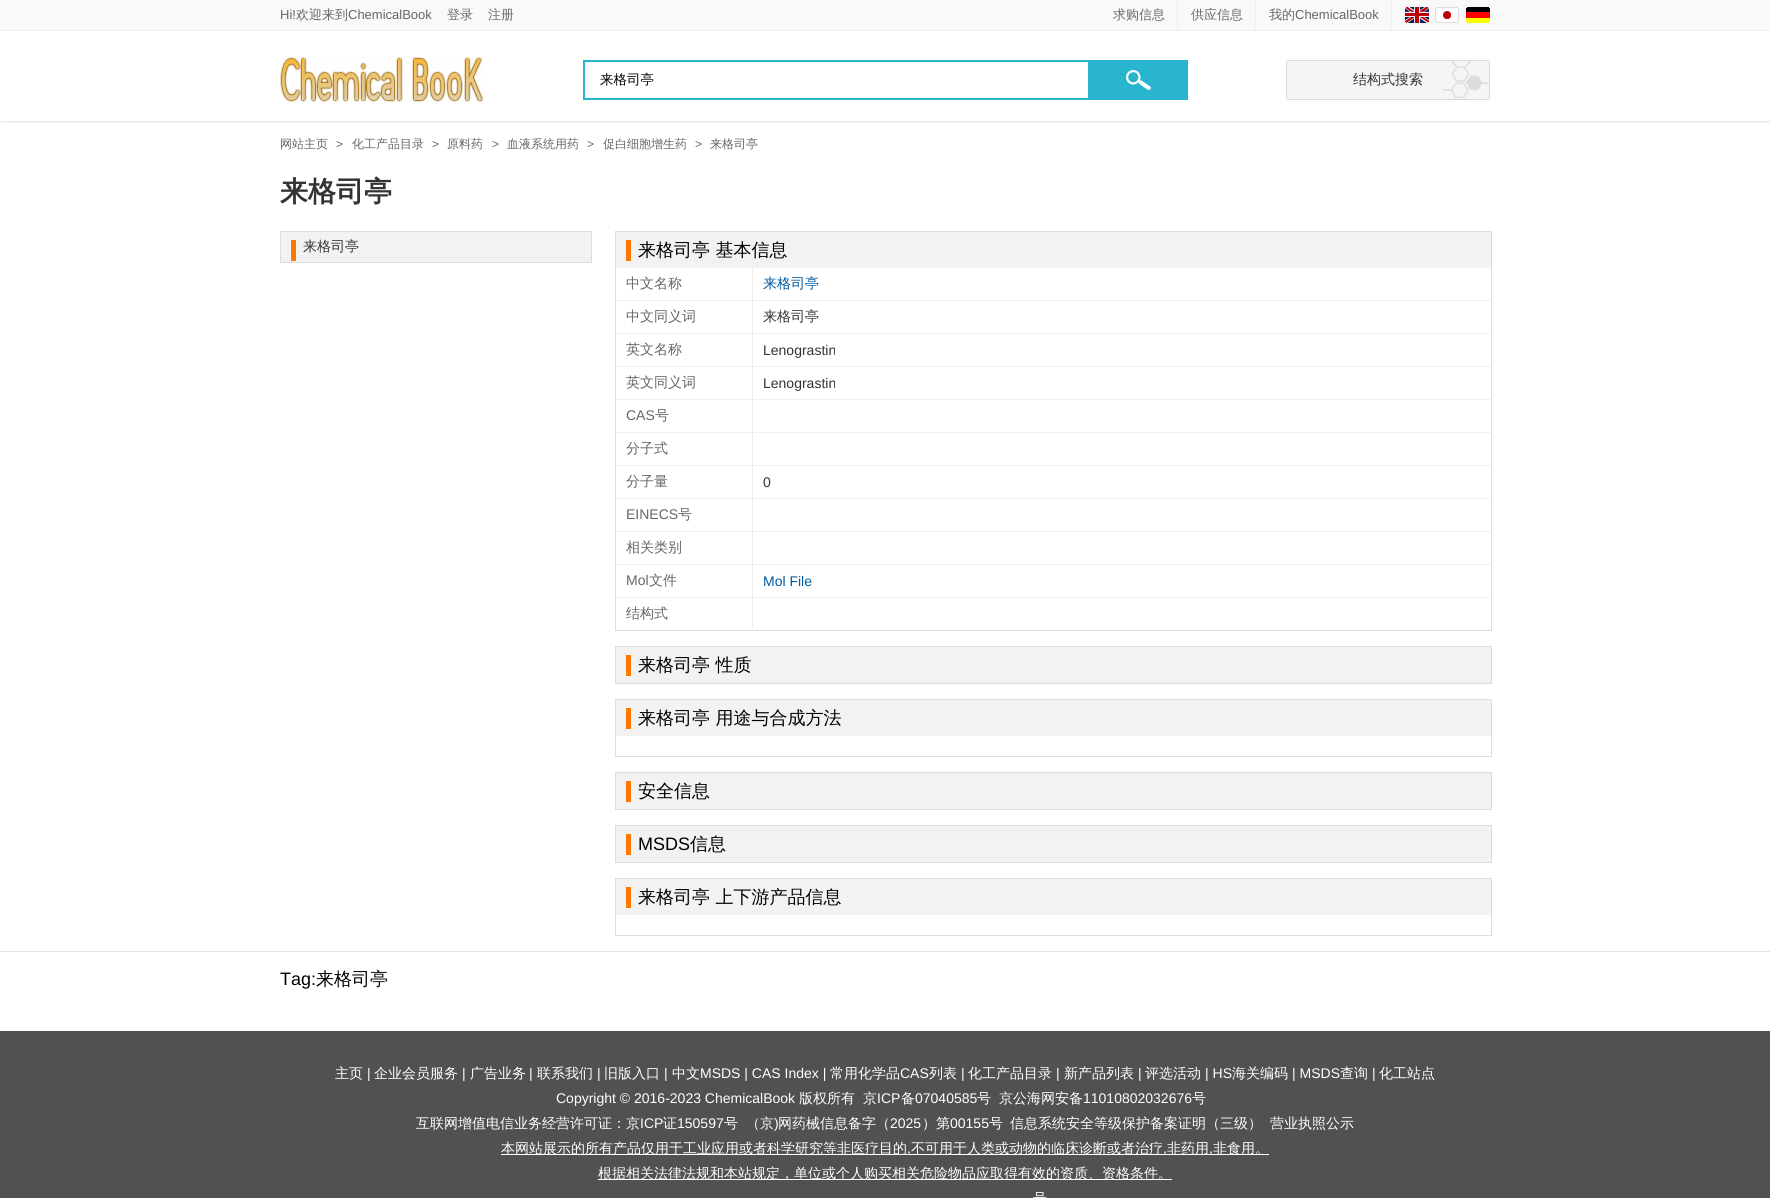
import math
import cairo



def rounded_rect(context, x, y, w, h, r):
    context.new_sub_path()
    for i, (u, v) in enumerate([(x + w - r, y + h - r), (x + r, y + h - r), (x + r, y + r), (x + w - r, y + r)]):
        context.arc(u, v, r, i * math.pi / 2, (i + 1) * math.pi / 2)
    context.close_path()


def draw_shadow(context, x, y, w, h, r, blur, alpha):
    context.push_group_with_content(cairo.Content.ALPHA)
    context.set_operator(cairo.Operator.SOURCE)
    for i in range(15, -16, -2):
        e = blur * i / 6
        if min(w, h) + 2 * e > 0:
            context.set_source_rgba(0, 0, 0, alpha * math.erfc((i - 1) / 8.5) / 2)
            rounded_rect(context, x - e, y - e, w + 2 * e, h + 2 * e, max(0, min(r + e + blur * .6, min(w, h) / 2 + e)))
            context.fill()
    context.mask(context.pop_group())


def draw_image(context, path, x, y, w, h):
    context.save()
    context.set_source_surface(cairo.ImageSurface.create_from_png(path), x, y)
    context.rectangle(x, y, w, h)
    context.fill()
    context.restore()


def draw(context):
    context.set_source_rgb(1, 1, 1)
    context.paint()
    context.save()
    context.rectangle(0, 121, 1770, 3)
    context.clip()
    context.set_source_rgb(224 / 255, 224 / 255, 224 / 255)
    draw_shadow(context, 0, 32, 1770, 90, 0, 1, 1)
    context.restore()
    context.set_source_rgb(249 / 255, 249 / 255, 249 / 255)
    context.rectangle(0, 0, 1770, 30)
    context.fill()
    context.set_source_rgb(238 / 255, 238 / 255, 238 / 255)
    context.rectangle(0, 30, 1770, 1)
    context.fill()
    context.set_source_rgb(239 / 255, 239 / 255, 239 / 255)
    context.rectangle(1177, 0, 1, 30)
    context.fill()
    context.rectangle(1255, 0, 1, 30)
    context.fill()
    context.rectangle(1391, 0, 1, 30)
    context.fill()
    draw_image(context, "images/1.png", 1405, 7, 24, 16)
    draw_image(context, "images/2.png", 1435, 7, 24, 16)
    draw_image(context, "images/3.png", 1466, 7, 24, 16)
    draw_image(context, "images/4.png", 280, 57, 204, 45)
    context.rectangle(584, 61, 603, 38)
    context.set_source_rgb(41 / 255, 181 / 255, 206 / 255)
    context.stroke()
    context.rectangle(1088, 62, 98, 36)
    context.fill()
    draw_image(context, "images/5.png", 1126, 70, 25, 20)
    context.set_source_rgb(245 / 255, 245 / 255, 245 / 255)
    rounded_rect(context, 1286, 60, 204, 40, 3)
    context.fill()
    draw_image(context, "images/6.png", 1443, 61, 46, 37)
    rounded_rect(context, 1286.5, 60.5, 203, 39, 2.5)
    context.set_source_rgb(218 / 255, 218 / 255, 218 / 255)
    context.set_line_width(1)
    context.stroke()
    context.rectangle(280.5, 231.5, 311, 31)
    context.set_source_rgb(221 / 255, 221 / 255, 221 / 255)
    context.stroke()
    context.set_source_rgb(242 / 255, 242 / 255, 242 / 255)
    context.rectangle(281, 232, 310, 30)
    context.fill()
    context.set_source_rgb(1, 120 / 255, 0)
    context.rectangle(291, 240, 5, 21)
    context.fill()
    context.rectangle(615.5, 231.5, 876, 399)
    context.set_source_rgb(221 / 255, 221 / 255, 221 / 255)
    context.stroke()
    context.set_source_rgb(242 / 255, 242 / 255, 242 / 255)
    context.rectangle(616, 232, 875, 36)
    context.fill()
    context.set_source_rgb(1, 120 / 255, 0)
    context.rectangle(626, 240, 5, 21)
    context.fill()
    context.set_source_rgb(238 / 255, 238 / 255, 238 / 255)
    context.rectangle(616, 300, 876, 1)
    context.fill()
    context.rectangle(616, 333, 876, 1)
    context.fill()
    context.rectangle(616, 366, 876, 1)
    context.fill()
    context.rectangle(616, 399, 876, 1)
    context.fill()
    context.rectangle(616, 432, 876, 1)
    context.fill()
    context.rectangle(616, 465, 876, 1)
    context.fill()
    context.rectangle(616, 498, 876, 1)
    context.fill()
    context.rectangle(616, 531, 876, 1)
    context.fill()
    context.rectangle(616, 564, 876, 1)
    context.fill()
    context.rectangle(616, 597, 876, 1)
    context.fill()
    context.rectangle(752, 268, 1, 363)
    context.fill()
    context.rectangle(615.5, 646.5, 876, 37)
    context.set_source_rgb(221 / 255, 221 / 255, 221 / 255)
    context.stroke()
    context.set_source_rgb(242 / 255, 242 / 255, 242 / 255)
    context.rectangle(616, 647, 875, 36)
    context.fill()
    context.set_source_rgb(1, 120 / 255, 0)
    context.rectangle(626, 655, 5, 21)
    context.fill()
    context.rectangle(615.5, 699.5, 876, 57)
    context.set_source_rgb(221 / 255, 221 / 255, 221 / 255)
    context.stroke()
    context.set_source_rgb(242 / 255, 242 / 255, 242 / 255)
    context.rectangle(616, 700, 875, 36)
    context.fill()
    context.set_source_rgb(1, 120 / 255, 0)
    context.rectangle(626, 708, 5, 21)
    context.fill()
    context.rectangle(615.5, 772.5, 876, 37)
    context.set_source_rgb(221 / 255, 221 / 255, 221 / 255)
    context.stroke()
    context.set_source_rgb(242 / 255, 242 / 255, 242 / 255)
    context.rectangle(616, 773, 875, 36)
    context.fill()
    context.set_source_rgb(1, 120 / 255, 0)
    context.rectangle(626, 781, 5, 21)
    context.fill()
    context.rectangle(615.5, 825.5, 876, 37)
    context.set_source_rgb(221 / 255, 221 / 255, 221 / 255)
    context.stroke()
    context.set_source_rgb(242 / 255, 242 / 255, 242 / 255)
    context.rectangle(616, 826, 875, 36)
    context.fill()
    context.set_source_rgb(1, 120 / 255, 0)
    context.rectangle(626, 834, 5, 21)
    context.fill()
    context.rectangle(615.5, 878.5, 876, 57)
    context.set_source_rgb(221 / 255, 221 / 255, 221 / 255)
    context.stroke()
    context.set_source_rgb(242 / 255, 242 / 255, 242 / 255)
    context.rectangle(616, 879, 875, 36)
    context.fill()
    context.set_source_rgb(1, 120 / 255, 0)
    context.rectangle(626, 887, 5, 21)
    context.fill()
    context.set_source_rgb(229 / 255, 229 / 255, 229 / 255)
    context.rectangle(0, 951, 1770, 1)
    context.fill()
    context.set_source_rgb(81 / 255, 81 / 255, 81 / 255)
    context.rectangle(0, 1031, 1770, 167)
    context.fill()
    context.set_source_rgb(1, 1, 1)
    context.rectangle(501, 1154, 768, 1)
    context.fill()
    context.rectangle(598, 1179, 574, 1)
    context.fill()
    context.select_font_face("Liberation Sans")
    context.set_font_size(13)
    context.set_source_rgb(102 / 255, 102 / 255, 102 / 255)
    context.move_to(280, 19)
    context.show_text("Hi!")
    context.select_font_face("WenQuanYi Zen Hei Medium")
    context.move_to(296, 19)
    context.show_text("欢迎来到")
    context.select_font_face("Liberation Sans")
    context.move_to(348, 19)
    context.show_text("ChemicalBook")
    context.select_font_face("WenQuanYi Zen Hei Medium")
    context.move_to(447, 19)
    context.show_text("登录")
    context.move_to(488, 19)
    context.show_text("注册")
    context.move_to(1113, 19)
    context.show_text("求购信息")
    context.move_to(1191, 19)
    context.show_text("供应信息")
    context.move_to(1269, 19)
    context.show_text("我的")
    context.select_font_face("Liberation Sans")
    context.move_to(1295, 19)
    context.show_text("ChemicalBook")
    context.select_font_face("WenQuanYi Zen Hei Medium")
    context.set_font_size(13.5)
    context.set_source_rgb(0, 0, 0)
    context.move_to(600, 84)
    context.show_text("来格司亭")
    context.set_font_size(14)
    context.set_source_rgb(51 / 255, 51 / 255, 51 / 255)
    context.move_to(1353, 84)
    context.show_text("结构式搜索")
    context.set_font_size(12)
    context.set_source_rgb(102 / 255, 102 / 255, 102 / 255)
    context.move_to(280, 148)
    context.show_text("网站主页")
    context.select_font_face("Liberation Sans")
    context.move_to(336, 148)
    context.show_text(">")
    context.select_font_face("WenQuanYi Zen Hei Medium")
    context.move_to(352, 148)
    context.show_text("化工产品目录")
    context.select_font_face("Liberation Sans")
    context.move_to(432, 148)
    context.show_text(">")
    context.select_font_face("WenQuanYi Zen Hei Medium")
    context.move_to(447, 148)
    context.show_text("原料药")
    context.select_font_face("Liberation Sans")
    context.move_to(492, 148)
    context.show_text(">")
    context.select_font_face("WenQuanYi Zen Hei Medium")
    context.move_to(507, 148)
    context.show_text("血液系统用药")
    context.select_font_face("Liberation Sans")
    context.move_to(587, 148)
    context.show_text(">")
    context.select_font_face("WenQuanYi Zen Hei Medium")
    context.move_to(603, 148)
    context.show_text("促白细胞增生药")
    context.select_font_face("Liberation Sans")
    context.move_to(695, 148)
    context.show_text(">")
    context.select_font_face("WenQuanYi Zen Hei Medium")
    context.move_to(710, 148)
    context.show_text("来格司亭")
    context.select_font_face("WenQuanYi Zen Hei", cairo.FontSlant.NORMAL, cairo.FontWeight.BOLD)
    context.set_font_size(28)
    context.set_source_rgb(51 / 255, 51 / 255, 51 / 255)
    context.move_to(280, 201)
    context.show_text("来格司亭")
    context.select_font_face("WenQuanYi Zen Hei Medium")
    context.set_font_size(14)
    context.move_to(303, 251)
    context.show_text("来格司亭")
    context.set_font_size(18)
    context.set_source_rgb(0, 0, 0)
    context.move_to(638, 256)
    context.show_text("来格司亭 基本信息")
    context.set_font_size(14)
    context.set_source_rgb(102 / 255, 102 / 255, 102 / 255)
    context.move_to(626, 288)
    context.show_text("中文名称")
    context.set_source_rgb(0, 90 / 255, 160 / 255)
    context.move_to(763, 288)
    context.show_text("来格司亭")
    context.set_source_rgb(102 / 255, 102 / 255, 102 / 255)
    context.move_to(626, 321)
    context.show_text("中文同义词")
    context.set_source_rgb(51 / 255, 51 / 255, 51 / 255)
    context.move_to(763, 321)
    context.show_text("来格司亭")
    context.set_source_rgb(102 / 255, 102 / 255, 102 / 255)
    context.move_to(626, 354)
    context.show_text("英文名称")
    context.select_font_face("Liberation Sans")
    context.set_source_rgb(51 / 255, 51 / 255, 51 / 255)
    context.move_to(763, 355)
    context.show_text("Lenograstin")
    context.select_font_face("WenQuanYi Zen Hei Medium")
    context.set_source_rgb(102 / 255, 102 / 255, 102 / 255)
    context.move_to(626, 387)
    context.show_text("英文同义词")
    context.select_font_face("Liberation Sans")
    context.set_source_rgb(51 / 255, 51 / 255, 51 / 255)
    context.move_to(763, 388)
    context.show_text("Lenograstin")
    context.set_source_rgb(102 / 255, 102 / 255, 102 / 255)
    context.move_to(626, 420)
    context.show_text("CAS")
    context.select_font_face("WenQuanYi Zen Hei Medium")
    context.move_to(655, 420)
    context.show_text("号")
    context.move_to(626, 453)
    context.show_text("分子式")
    context.move_to(626, 486)
    context.show_text("分子量")
    context.select_font_face("Liberation Sans")
    context.set_source_rgb(51 / 255, 51 / 255, 51 / 255)
    context.move_to(763, 487)
    context.show_text("0")
    context.set_source_rgb(102 / 255, 102 / 255, 102 / 255)
    context.move_to(626, 519)
    context.show_text("EINECS")
    context.select_font_face("WenQuanYi Zen Hei Medium")
    context.move_to(678, 519)
    context.show_text("号")
    context.move_to(626, 552)
    context.show_text("相关类别")
    context.select_font_face("Liberation Sans")
    context.move_to(626, 585)
    context.show_text("Mol")
    context.select_font_face("WenQuanYi Zen Hei Medium")
    context.move_to(649, 585)
    context.show_text("文件")
    context.select_font_face("Liberation Sans")
    context.set_source_rgb(0, 90 / 255, 160 / 255)
    context.move_to(763, 586)
    context.show_text("Mol File")
    context.select_font_face("WenQuanYi Zen Hei Medium")
    context.set_source_rgb(102 / 255, 102 / 255, 102 / 255)
    context.move_to(626, 618)
    context.show_text("结构式")
    context.set_font_size(18)
    context.set_source_rgb(0, 0, 0)
    context.move_to(638, 671)
    context.show_text("来格司亭 性质")
    context.move_to(638, 724)
    context.show_text("来格司亭 用途与合成方法")
    context.move_to(638, 797)
    context.show_text("安全信息")
    context.select_font_face("Liberation Sans")
    context.move_to(638, 850)
    context.show_text("MSDS")
    context.select_font_face("WenQuanYi Zen Hei Medium")
    context.move_to(690, 850)
    context.show_text("信息")
    context.move_to(638, 903)
    context.show_text("来格司亭 上下游产品信息")
    context.select_font_face("Liberation Sans")
    context.move_to(280, 985)
    context.show_text("Tag:")
    context.select_font_face("WenQuanYi Zen Hei Medium")
    context.move_to(316, 985)
    context.show_text("来格司亭")
    context.set_font_size(14)
    context.set_source_rgb(1, 1, 1)
    context.move_to(335, 1078)
    context.show_text("主页")
    context.select_font_face("Liberation Sans")
    context.move_to(367, 1078)
    context.show_text("|")
    context.select_font_face("WenQuanYi Zen Hei Medium")
    context.move_to(374, 1078)
    context.show_text("企业会员服务")
    context.select_font_face("Liberation Sans")
    context.move_to(462, 1078)
    context.show_text("|")
    context.select_font_face("WenQuanYi Zen Hei Medium")
    context.move_to(470, 1078)
    context.show_text("广告业务")
    context.select_font_face("Liberation Sans")
    context.move_to(529, 1078)
    context.show_text("|")
    context.select_font_face("WenQuanYi Zen Hei Medium")
    context.move_to(537, 1078)
    context.show_text("联系我们")
    context.select_font_face("Liberation Sans")
    context.move_to(597, 1078)
    context.show_text("|")
    context.select_font_face("WenQuanYi Zen Hei Medium")
    context.move_to(604, 1078)
    context.show_text("旧版入口")
    context.select_font_face("Liberation Sans")
    context.move_to(664, 1078)
    context.show_text("|")
    context.select_font_face("WenQuanYi Zen Hei Medium")
    context.move_to(672, 1078)
    context.show_text("中文")
    context.select_font_face("Liberation Sans")
    context.move_to(700, 1078)
    context.show_text("MSDS | CAS Index |")
    context.select_font_face("WenQuanYi Zen Hei Medium")
    context.move_to(830, 1078)
    context.show_text("常用化学品")
    context.select_font_face("Liberation Sans")
    context.move_to(900, 1078)
    context.show_text("CAS")
    context.select_font_face("WenQuanYi Zen Hei Medium")
    context.move_to(929, 1078)
    context.show_text("列表")
    context.select_font_face("Liberation Sans")
    context.move_to(961, 1078)
    context.show_text("|")
    context.select_font_face("WenQuanYi Zen Hei Medium")
    context.move_to(968, 1078)
    context.show_text("化工产品目录")
    context.select_font_face("Liberation Sans")
    context.move_to(1056, 1078)
    context.show_text("|")
    context.select_font_face("WenQuanYi Zen Hei Medium")
    context.move_to(1064, 1078)
    context.show_text("新产品列表")
    context.select_font_face("Liberation Sans")
    context.move_to(1138, 1078)
    context.show_text("|")
    context.select_font_face("WenQuanYi Zen Hei Medium")
    context.move_to(1145, 1078)
    context.show_text("评选活动")
    context.select_font_face("Liberation Sans")
    context.move_to(1205, 1078)
    context.show_text("| HS")
    context.select_font_face("WenQuanYi Zen Hei Medium")
    context.move_to(1232, 1078)
    context.show_text("海关编码")
    context.select_font_face("Liberation Sans")
    context.move_to(1292, 1078)
    context.show_text("| MSDS")
    context.select_font_face("WenQuanYi Zen Hei Medium")
    context.move_to(1340, 1078)
    context.show_text("查询")
    context.select_font_face("Liberation Sans")
    context.move_to(1372, 1078)
    context.show_text("|")
    context.select_font_face("WenQuanYi Zen Hei Medium")
    context.move_to(1379, 1078)
    context.show_text("化工站点")
    context.select_font_face("Liberation Sans")
    context.move_to(556, 1103)
    context.show_text("Copyright © 2016-2023 ChemicalBook")
    context.select_font_face("WenQuanYi Zen Hei Medium")
    context.move_to(799, 1103)
    context.show_text("版权所有")
    context.move_to(863, 1103)
    context.show_text("京")
    context.select_font_face("Liberation Sans")
    context.move_to(877, 1103)
    context.show_text("ICP")
    context.select_font_face("WenQuanYi Zen Hei Medium")
    context.move_to(901, 1103)
    context.show_text("备")
    context.select_font_face("Liberation Sans")
    context.move_to(915, 1103)
    context.show_text("07040585")
    context.select_font_face("WenQuanYi Zen Hei Medium")
    context.move_to(977, 1103)
    context.show_text("号")
    context.move_to(999, 1103)
    context.show_text("京公海网安备")
    context.select_font_face("Liberation Sans")
    context.move_to(1083, 1103)
    context.show_text("11010802032676")
    context.select_font_face("WenQuanYi Zen Hei Medium")
    context.move_to(1192, 1103)
    context.show_text("号")
    context.move_to(416, 1128)
    context.show_text("互联网增值电信业务经营许可证：京")
    context.select_font_face("Liberation Sans")
    context.move_to(640, 1128)
    context.show_text("ICP")
    context.select_font_face("WenQuanYi Zen Hei Medium")
    context.move_to(663, 1128)
    context.show_text("证")
    context.select_font_face("Liberation Sans")
    context.move_to(677, 1128)
    context.show_text("150597")
    context.select_font_face("WenQuanYi Zen Hei Medium")
    context.move_to(724, 1128)
    context.show_text("号")
    context.move_to(746, 1128)
    context.show_text("（京")
    context.select_font_face("Liberation Sans")
    context.move_to(774, 1128)
    context.show_text(")")
    context.select_font_face("WenQuanYi Zen Hei Medium")
    context.move_to(778, 1128)
    context.show_text("网药械信息备字（")
    context.select_font_face("Liberation Sans")
    context.move_to(890, 1128)
    context.show_text("2025")
    context.select_font_face("WenQuanYi Zen Hei Medium")
    context.move_to(922, 1128)
    context.show_text("）第")
    context.select_font_face("Liberation Sans")
    context.move_to(950, 1128)
    context.show_text("00155")
    context.select_font_face("WenQuanYi Zen Hei Medium")
    context.move_to(989, 1128)
    context.show_text("号")
    context.move_to(1010, 1128)
    context.show_text("信息系统安全等级保护备案证明（三级）")
    context.move_to(1270, 1128)
    context.show_text("营业执照公示")
    context.move_to(501, 1153)
    context.show_text("本网站展示的所有产品仅用于工业应用或者科学研究等非医疗目的")
    context.select_font_face("Liberation Sans")
    context.move_to(907, 1153)
    context.show_text(",")
    context.select_font_face("WenQuanYi Zen Hei Medium")
    context.move_to(911, 1153)
    context.show_text("不可用于人类或动物的临床诊断或者治疗")
    context.select_font_face("Liberation Sans")
    context.move_to(1163, 1153)
    context.show_text(",")
    context.select_font_face("WenQuanYi Zen Hei Medium")
    context.move_to(1167, 1153)
    context.show_text("非药用")
    context.select_font_face("Liberation Sans")
    context.move_to(1209, 1153)
    context.show_text(",")
    context.select_font_face("WenQuanYi Zen Hei Medium")
    context.move_to(1213, 1153)
    context.show_text("非食用。")
    context.move_to(598, 1178)
    context.show_text("根据相关法律法规和本站规定，单位或个人购买相关危险物品应取得有效的资质、资格条件。")
    context.move_to(1033, 1203)
    context.show_text("号")


surface = cairo.ImageSurface(cairo.Format.RGB24, 1770, 1198)
context = cairo.Context(surface)
options = cairo.FontOptions()
options.set_hint_metrics(cairo.HintMetrics.OFF)
options.set_hint_style(cairo.HintStyle.NONE)
context.set_font_options(options)
context.set_miter_limit(4)
draw(context)
surface.write_to_png("out.png")
